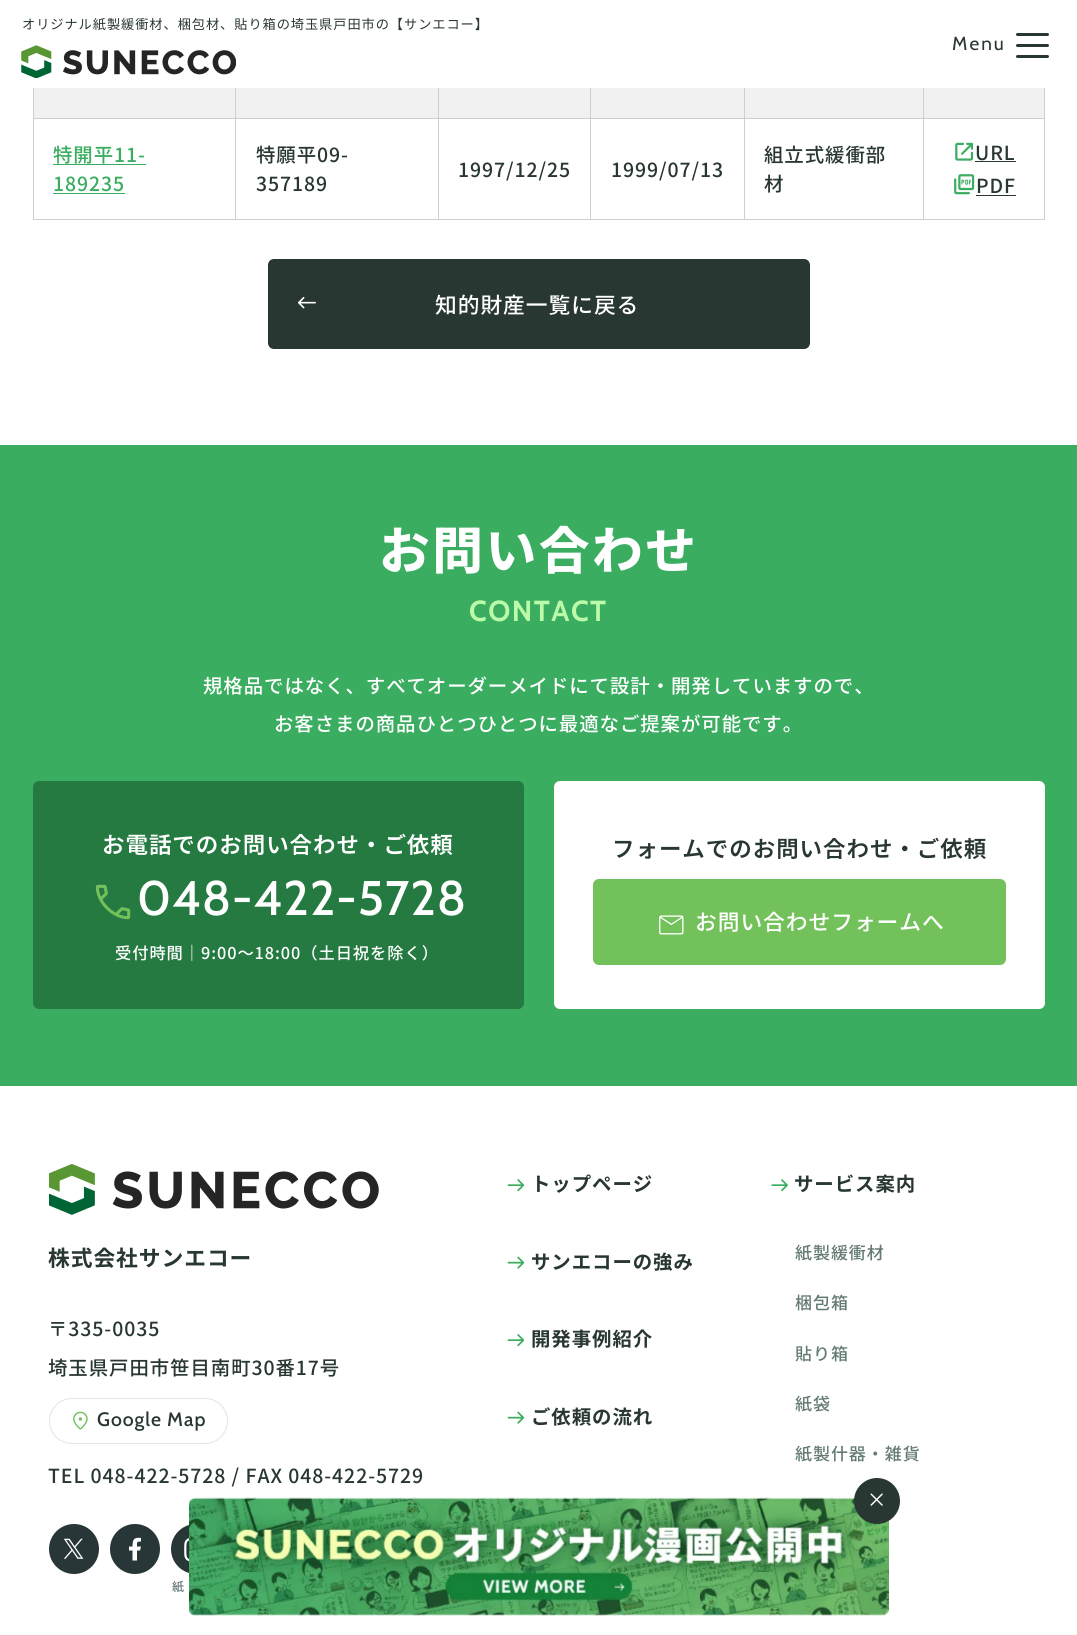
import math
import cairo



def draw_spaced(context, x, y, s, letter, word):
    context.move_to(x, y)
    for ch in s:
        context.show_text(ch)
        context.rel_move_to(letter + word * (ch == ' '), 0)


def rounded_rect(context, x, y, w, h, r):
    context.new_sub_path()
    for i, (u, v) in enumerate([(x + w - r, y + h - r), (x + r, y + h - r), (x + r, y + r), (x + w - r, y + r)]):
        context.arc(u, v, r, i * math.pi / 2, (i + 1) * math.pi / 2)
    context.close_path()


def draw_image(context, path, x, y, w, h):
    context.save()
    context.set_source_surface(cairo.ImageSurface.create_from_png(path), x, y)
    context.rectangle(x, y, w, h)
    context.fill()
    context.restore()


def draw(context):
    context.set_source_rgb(1, 1, 1)
    context.paint()
    draw_image(context, "images/1.png", 21, 45, 215, 33)
    context.set_source_rgb(41 / 255, 55 / 255, 51 / 255)
    rounded_rect(context, 1016, 33, 33, 3, 1.5)
    context.fill()
    rounded_rect(context, 1016, 44, 33, 3, 1.5)
    context.fill()
    rounded_rect(context, 1016, 55, 33, 3, 1.5)
    context.fill()
    context.set_source_rgb(241 / 255, 241 / 255, 241 / 255)
    context.rectangle(34, 88, 201, 30)
    context.fill()
    context.rectangle(236, 88, 202, 30)
    context.fill()
    context.set_source_rgb(207 / 255, 207 / 255, 207 / 255)
    context.rectangle(923, 118, 122, 1)
    context.fill()
    context.rectangle(1044, 88, 1, 132)
    context.fill()
    context.rectangle(923, 219, 122, 1)
    context.fill()
    context.rectangle(923, 118, 1, 102)
    context.fill()
    context.rectangle(744, 118, 180, 1)
    context.fill()
    context.rectangle(744, 219, 180, 1)
    context.fill()
    context.rectangle(744, 118, 1, 102)
    context.fill()
    context.rectangle(590, 118, 155, 1)
    context.fill()
    context.rectangle(590, 219, 155, 1)
    context.fill()
    context.rectangle(590, 118, 1, 102)
    context.fill()
    context.rectangle(438, 118, 153, 1)
    context.fill()
    context.rectangle(438, 219, 153, 1)
    context.fill()
    context.rectangle(438, 118, 1, 102)
    context.fill()
    context.rectangle(235, 118, 204, 1)
    context.fill()
    context.rectangle(235, 219, 204, 1)
    context.fill()
    context.rectangle(235, 118, 1, 102)
    context.fill()
    context.rectangle(33, 118, 203, 1)
    context.fill()
    context.rectangle(235, 88, 1, 31)
    context.fill()
    context.set_source_rgb(241 / 255, 241 / 255, 241 / 255)
    context.rectangle(439, 88, 151, 30)
    context.fill()
    context.set_source_rgb(207 / 255, 207 / 255, 207 / 255)
    context.rectangle(438, 88, 1, 31)
    context.fill()
    context.set_source_rgb(241 / 255, 241 / 255, 241 / 255)
    context.rectangle(591, 88, 153, 30)
    context.fill()
    context.set_source_rgb(207 / 255, 207 / 255, 207 / 255)
    context.rectangle(590, 88, 1, 31)
    context.fill()
    context.set_source_rgb(241 / 255, 241 / 255, 241 / 255)
    context.rectangle(745, 88, 178, 30)
    context.fill()
    context.set_source_rgb(207 / 255, 207 / 255, 207 / 255)
    context.rectangle(744, 88, 1, 31)
    context.fill()
    context.set_source_rgb(241 / 255, 241 / 255, 241 / 255)
    context.rectangle(924, 88, 120, 30)
    context.fill()
    context.set_source_rgb(207 / 255, 207 / 255, 207 / 255)
    context.rectangle(923, 88, 1, 31)
    context.fill()
    context.rectangle(33, 219, 203, 1)
    context.fill()
    context.rectangle(33, 88, 1, 132)
    context.fill()
    context.set_source_rgb(58 / 255, 173 / 255, 96 / 255)
    context.rectangle(53, 164, 93, 1)
    context.fill()
    context.rectangle(53, 193, 72, 1)
    context.fill()
    draw_image(context, "images/2.png", 955, 142, 19, 19)
    context.set_source_rgb(41 / 255, 55 / 255, 51 / 255)
    context.rectangle(975, 161, 41, 1)
    context.fill()
    draw_image(context, "images/3.png", 954, 174, 21, 21)
    context.rectangle(976, 195, 40, 1)
    context.fill()
    rounded_rect(context, 268, 259, 542, 90, 6)
    context.fill()
    draw_image(context, "images/4.png", 298, 296, 18, 13)
    context.set_source_rgb(58 / 255, 173 / 255, 96 / 255)
    context.rectangle(0, 445, 1077, 641)
    context.fill()
    context.set_source_rgb(37 / 255, 122 / 255, 65 / 255)
    rounded_rect(context, 33, 781, 491, 228, 6)
    context.fill()
    draw_image(context, "images/5.png", 95, 884, 36, 36)
    context.set_source_rgb(1, 1, 1)
    rounded_rect(context, 554, 781, 491, 228, 6)
    context.fill()
    context.set_source_rgb(115 / 255, 193 / 255, 91 / 255)
    rounded_rect(context, 593, 879, 413, 86, 6)
    context.fill()
    draw_image(context, "images/6.png", 659, 915, 25, 20)
    draw_image(context, "images/7.png", 49, 1164, 330, 51)
    rounded_rect(context, 49.5, 1398.5, 178, 45, 22.5)
    context.set_source_rgb(221 / 255, 230 / 255, 225 / 255)
    context.set_line_width(1)
    context.stroke()
    draw_image(context, "images/8.png", 73, 1411, 15, 19)
    draw_image(context, "images/9.png", 49, 1524, 50, 50)
    context.set_source_rgb(41 / 255, 54 / 255, 55 / 255)
    context.arc(135, 1549, 25, 0, 2 * math.pi)
    context.fill()
    context.set_source_rgb(1, 1, 1)
    context.new_path()
    context.move_to(140, 1550.5)
    context.line_to(141, 1546.5)
    context.line_to(137, 1546.5)
    context.curve_to(137, 1542, 136.5, 1541.5, 141, 1541.5)
    context.line_to(141, 1538)
    context.curve_to(134, 1537, 132.5, 1539.5, 132.5, 1546.5)
    context.line_to(129, 1546.5)
    context.line_to(129, 1550.5)
    context.line_to(132.5, 1550.5)
    context.line_to(132.5, 1560.5)
    context.line_to(137, 1560.5)
    context.line_to(137, 1550.5)
    context.close_path()
    context.fill()
    draw_image(context, "images/10.png", 171, 1525, 18, 48)
    draw_image(context, "images/11.png", 507, 1179, 18, 13)
    draw_image(context, "images/12.png", 507, 1256, 18, 13)
    draw_image(context, "images/11.png", 507, 1334, 18, 13)
    draw_image(context, "images/12.png", 507, 1411, 18, 13)
    draw_image(context, "images/13.png", 771, 1179, 17, 13)
    draw_image(context, "images/14.png", 517, 1614, 3, 1)
    draw_image(context, "images/15.png", 781, 1614, 3, 1)
    draw_image(context, "images/17.png", 189, 1497, 700, 119)
    context.set_source_rgb(41 / 255, 55 / 255, 51 / 255)
    context.arc(877, 1501, 23, 0, 2 * math.pi)
    context.fill()
    draw_image(context, "images/16.png", 870, 1493, 13, 13)
    context.select_font_face("Noto Sans JP")
    context.set_font_size(13.2)
    draw_spaced(context, 22, 29, "オリジナル紙製緩衝材、梱包材、貼り箱の埼玉県戸田市の【サンエコー】", 0.95, 0)
    context.select_font_face("Cabin")
    context.set_font_size(19)
    draw_spaced(context, 952, 50, "Menu", 2, 0)
    context.select_font_face("Noto Sans JP Medium")
    context.set_font_size(19.4)
    context.set_source_rgb(58 / 255, 173 / 255, 96 / 255)
    draw_spaced(context, 53, 162, "特開平11-", 0.95, 0)
    draw_spaced(context, 53, 191, "189235", 0.95, 0)
    context.set_source_rgb(41 / 255, 55 / 255, 51 / 255)
    draw_spaced(context, 256, 162, "特願平09-", 0.95, 0)
    draw_spaced(context, 256, 191, "357189", 0.95, 0)
    draw_spaced(context, 458, 177, "1997/12/25", 0.95, 0)
    draw_spaced(context, 611, 177, "1999/07/13", 0.95, 0)
    draw_spaced(context, 764, 162, "組立式緩衝部", 0.95, 0)
    draw_spaced(context, 764, 191, "材", 0.95, 0)
    draw_spaced(context, 975, 160, "URL", 0.95, 0)
    draw_spaced(context, 976, 193, "PDF", 0.95, 0)
    context.set_font_size(21.75)
    context.set_source_rgb(1, 1, 1)
    draw_spaced(context, 435, 313, "知的財産一覧に戻る", 0.95, 0)
    context.select_font_face("Noto Sans JP ExtraBold")
    context.set_font_size(50.75)
    draw_spaced(context, 379, 569, "お問い合わせ", 2.5, 0)
    context.select_font_face("Cabin", cairo.FontSlant.NORMAL, cairo.FontWeight.BOLD)
    context.set_font_size(29)
    context.set_source_rgb(187 / 255, 250 / 255, 168 / 255)
    draw_spaced(context, 469, 621, "CONTACT", 1.5, 0)
    context.select_font_face("Noto Sans JP Medium")
    context.set_font_size(19.4)
    context.set_source_rgb(1, 1, 1)
    draw_spaced(context, 203, 693, "規格品ではなく、すべてオーダーメイドにて設計・開発していますので、", 0.95, 0)
    draw_spaced(context, 274, 731, "お客さまの商品ひとつひとつに最適なご提案が可能です。", 0.95, 0)
    context.select_font_face("Noto Sans JP SemiBold")
    context.set_font_size(22.5)
    draw_spaced(context, 102, 853, "お電話でのお問い合わせ・ご依頼", 0.95, 0)
    context.select_font_face("Cabin Medium")
    context.set_font_size(48.5)
    draw_spaced(context, 137, 915, "048-422-5728", 0.95, 0)
    context.select_font_face("Noto Sans JP Medium")
    context.set_font_size(16.25)
    draw_spaced(context, 115, 959, "受付時間｜9:00〜18:00（土日祝を除く）", 0.95, 0)
    context.select_font_face("Noto Sans JP SemiBold")
    context.set_font_size(22.5)
    context.set_source_rgb(41 / 255, 55 / 255, 51 / 255)
    draw_spaced(context, 612, 857, "フォームでのお問い合わせ・ご依頼", 0.95, 0)
    context.select_font_face("Noto Sans JP Medium")
    context.set_font_size(21.75)
    context.set_source_rgb(1, 1, 1)
    draw_spaced(context, 695, 930, "お問い合わせフォームへ", 0.95, 0)
    context.select_font_face("Noto Sans JP", cairo.FontSlant.NORMAL, cairo.FontWeight.BOLD)
    context.set_source_rgb(41 / 255, 55 / 255, 51 / 255)
    draw_spaced(context, 48, 1266, "株式会社サンエコー", 0.95, 0)
    context.select_font_face("Noto Sans JP Medium")
    context.set_font_size(19.4)
    draw_spaced(context, 48, 1336, "〒335-0035", 0.95, 0)
    draw_spaced(context, 48, 1375, "埼玉県戸田市笹目南町30番17号", 0.95, 0)
    context.select_font_face("Cabin Medium")
    draw_spaced(context, 97, 1426, "Google Map", 0.95, 0)
    context.select_font_face("Noto Sans JP Medium")
    draw_spaced(context, 48, 1483, "TEL 048-422-5728 / FAX 048-422-5729", 0.95, 0)
    context.set_font_size(12)
    context.set_source_rgb(99 / 255, 117 / 255, 119 / 255)
    draw_spaced(context, 172, 1591, "紙", 0.95, 0)
    context.select_font_face("Noto Sans JP", cairo.FontSlant.NORMAL, cairo.FontWeight.BOLD)
    context.set_font_size(19.4)
    context.set_source_rgb(41 / 255, 55 / 255, 51 / 255)
    draw_spaced(context, 531, 1191, "トップページ", 0.95, 0)
    draw_spaced(context, 531, 1269, "サンエコーの強み", 0.95, 0)
    draw_spaced(context, 531, 1346, "開発事例紹介", 0.95, 0)
    draw_spaced(context, 531, 1424, "ご依頼の流れ", 0.95, 0)
    draw_spaced(context, 794, 1191, "サービス案内", 0.95, 0)
    context.select_font_face("Noto Sans JP Medium")
    context.set_font_size(17)
    context.set_source_rgb(100 / 255, 123 / 255, 115 / 255)
    draw_spaced(context, 795, 1259, "紙製緩衝材", 0.95, 0)
    draw_spaced(context, 795, 1309, "梱包箱", 0.95, 0)
    draw_spaced(context, 795, 1360, "貼り箱", 0.95, 0)
    draw_spaced(context, 795, 1410, "紙袋", 0.95, 0)
    draw_spaced(context, 795, 1460, "紙製什器・雑貨", 0.95, 0)


surface = cairo.ImageSurface(cairo.Format.RGB24, 1077, 1635)
context = cairo.Context(surface)
options = cairo.FontOptions()
options.set_hint_metrics(cairo.HintMetrics.OFF)
options.set_hint_style(cairo.HintStyle.NONE)
context.set_font_options(options)
context.set_miter_limit(4)
draw(context)
surface.write_to_png("out.png")
